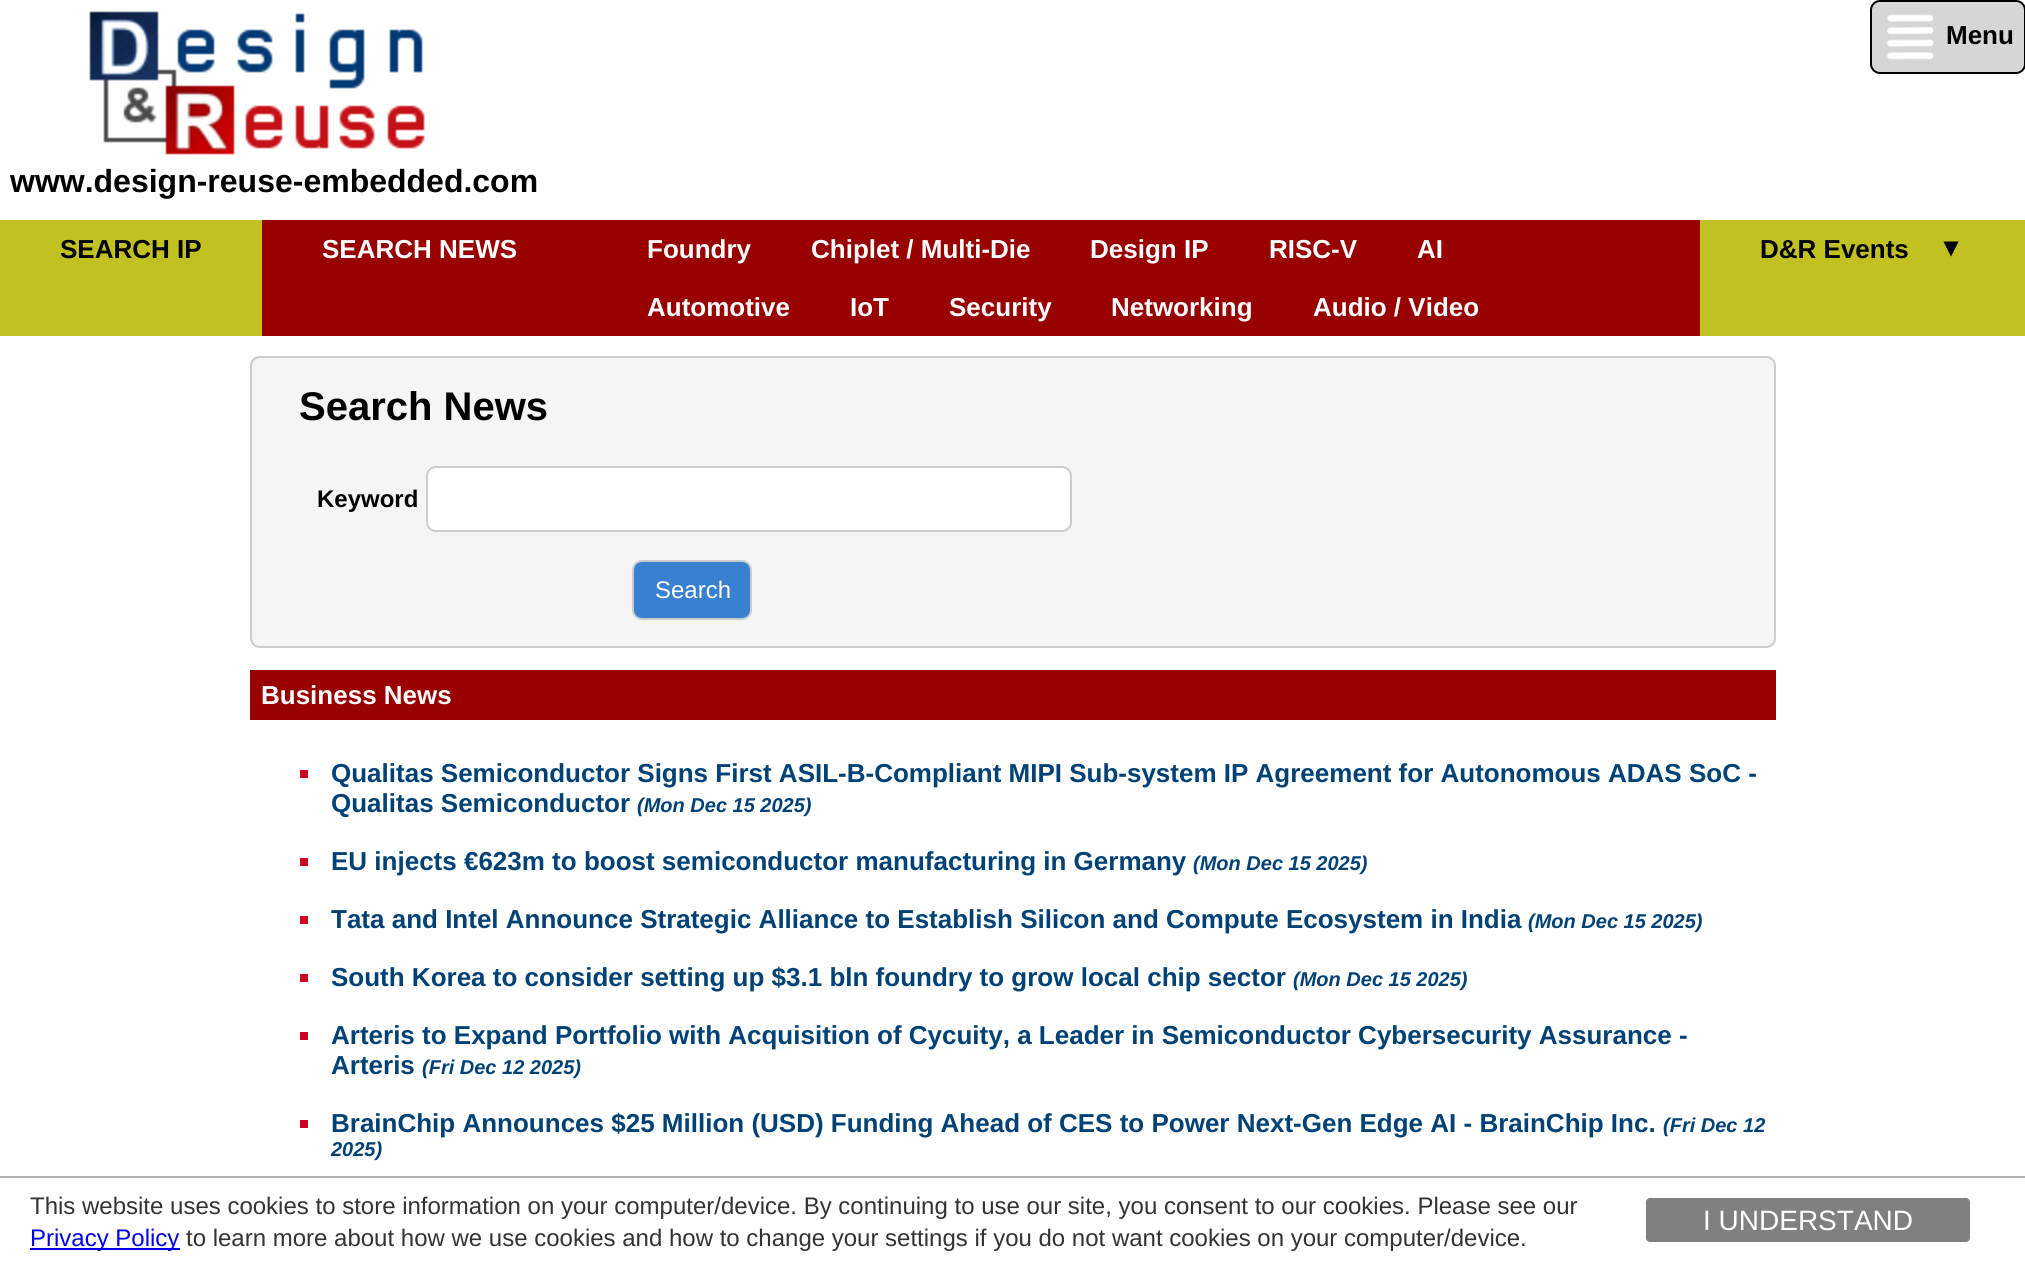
import math
import cairo



def rounded_rect(context, x, y, w, h, r):
    context.new_sub_path()
    for i, (u, v) in enumerate([(x + w - r, y + h - r), (x + r, y + h - r), (x + r, y + r), (x + w - r, y + r)]):
        context.arc(u, v, r, i * math.pi / 2, (i + 1) * math.pi / 2)
    context.close_path()


def draw_image(context, path, x, y, w, h):
    context.save()
    context.set_source_surface(cairo.ImageSurface.create_from_png(path), x, y)
    context.rectangle(x, y, w, h)
    context.fill()
    context.restore()


def draw(context):
    context.set_source_rgb(1, 1, 1)
    context.paint()
    context.set_source_rgb(214 / 255, 214 / 255, 214 / 255)
    rounded_rect(context, 1871, 1, 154, 72, 9)
    context.fill_preserve()
    context.set_source_rgb(0, 0, 0)
    context.stroke()
    draw_image(context, "images/1.png", 1887, 14, 47, 46)
    draw_image(context, "images/2.png", 89, 11, 337, 144)
    context.set_source_rgb(153 / 255, 0, 0)
    context.rectangle(262, 220, 1438, 116)
    context.fill()
    context.set_source_rgb(193 / 255, 193 / 255, 33 / 255)
    context.rectangle(0, 220, 262, 116)
    context.fill()
    context.rectangle(1700, 220, 325, 116)
    context.fill()
    draw_image(context, "images/3.png", 1943, 241, 16, 16)
    context.set_source_rgb(245 / 255, 245 / 255, 245 / 255)
    rounded_rect(context, 251, 357, 1524, 290, 9)
    context.fill_preserve()
    context.set_source_rgb(204 / 255, 204 / 255, 204 / 255)
    context.stroke()
    context.set_source_rgb(1, 1, 1)
    rounded_rect(context, 427, 467, 644, 64, 9)
    context.fill_preserve()
    context.set_source_rgb(204 / 255, 204 / 255, 204 / 255)
    context.stroke()
    context.set_source_rgb(57 / 255, 128 / 255, 208 / 255)
    rounded_rect(context, 633, 561, 118, 58, 9)
    context.fill_preserve()
    context.set_source_rgb(204 / 255, 204 / 255, 204 / 255)
    context.stroke()
    context.set_source_rgb(153 / 255, 0, 0)
    context.rectangle(250, 670, 1526, 50)
    context.fill()
    context.set_source_rgb(202 / 255, 2 / 255, 31 / 255)
    context.rectangle(300, 770, 8, 8)
    context.fill()
    context.rectangle(300, 858, 8, 8)
    context.fill()
    context.rectangle(300, 916, 8, 8)
    context.fill()
    context.rectangle(300, 974, 8, 8)
    context.fill()
    context.rectangle(300, 1032, 8, 8)
    context.fill()
    context.rectangle(300, 1120, 8, 8)
    context.fill()
    context.set_source_rgb(179 / 255, 179 / 255, 179 / 255)
    context.rectangle(0, 1176, 2025, 2)
    context.fill()
    context.set_source_rgb(0, 0, 238 / 255)
    context.rectangle(30, 1248, 150, 2)
    context.fill()
    context.set_source_rgb(128 / 255, 128 / 255, 128 / 255)
    rounded_rect(context, 1646, 1198, 324, 44, 4)
    context.fill()
    context.select_font_face("Liberation Sans", cairo.FontSlant.NORMAL, cairo.FontWeight.BOLD)
    context.set_font_size(26)
    context.set_source_rgb(0, 0, 0)
    context.move_to(1946, 44)
    context.show_text("Menu")
    context.set_font_size(32)
    context.move_to(10, 192)
    context.show_text("www.design-reuse-embedded.com")
    context.set_font_size(26)
    context.move_to(60, 258)
    context.show_text("SEARCH IP")
    context.set_source_rgb(1, 1, 1)
    context.move_to(322, 258)
    context.show_text("SEARCH NEWS")
    context.move_to(647, 258)
    context.show_text("Foundry")
    context.move_to(811, 258)
    context.show_text("Chiplet / Multi-Die")
    context.move_to(1090, 258)
    context.show_text("Design IP")
    context.move_to(1269, 258)
    context.show_text("RISC-V")
    context.move_to(1417, 258)
    context.show_text("AI")
    context.move_to(647, 316)
    context.show_text("Automotive")
    context.move_to(850, 316)
    context.show_text("IoT")
    context.move_to(949, 316)
    context.show_text("Security")
    context.move_to(1111, 316)
    context.show_text("Networking")
    context.move_to(1313, 316)
    context.show_text("Audio / Video")
    context.set_source_rgb(0, 0, 0)
    context.move_to(1760, 258)
    context.show_text("D&R Events")
    context.set_font_size(40)
    context.move_to(299, 420)
    context.show_text("Search News")
    context.set_font_size(24)
    context.move_to(317, 507)
    context.show_text("Keyword")
    context.select_font_face("Liberation Sans")
    context.set_source_rgb(1, 1, 1)
    context.move_to(655, 598)
    context.show_text("Search")
    context.select_font_face("Liberation Sans", cairo.FontSlant.NORMAL, cairo.FontWeight.BOLD)
    context.set_font_size(26)
    context.move_to(261, 704)
    context.show_text("Business News")
    context.set_source_rgb(0, 66 / 255, 118 / 255)
    context.move_to(331, 782)
    context.show_text("Qualitas Semiconductor Signs First ASIL-B-Compliant MIPI Sub-system IP Agreement for Autonomous ADAS SoC -")
    context.move_to(331, 812)
    context.show_text("Qualitas Semiconductor")
    context.select_font_face("Liberation Sans", cairo.FontSlant.ITALIC, cairo.FontWeight.BOLD)
    context.set_font_size(20)
    context.move_to(637, 812)
    context.show_text("(Mon Dec 15 2025)")
    context.select_font_face("Liberation Sans", cairo.FontSlant.NORMAL, cairo.FontWeight.BOLD)
    context.set_font_size(26)
    context.move_to(331, 870)
    context.show_text("EU injects €623m to boost semiconductor manufacturing in Germany")
    context.select_font_face("Liberation Sans", cairo.FontSlant.ITALIC, cairo.FontWeight.BOLD)
    context.set_font_size(20)
    context.move_to(1193, 870)
    context.show_text("(Mon Dec 15 2025)")
    context.select_font_face("Liberation Sans", cairo.FontSlant.NORMAL, cairo.FontWeight.BOLD)
    context.set_font_size(26)
    context.move_to(331, 928)
    context.show_text("Tata and Intel Announce Strategic Alliance to Establish Silicon and Compute Ecosystem in India")
    context.select_font_face("Liberation Sans", cairo.FontSlant.ITALIC, cairo.FontWeight.BOLD)
    context.set_font_size(20)
    context.move_to(1528, 928)
    context.show_text("(Mon Dec 15 2025)")
    context.select_font_face("Liberation Sans", cairo.FontSlant.NORMAL, cairo.FontWeight.BOLD)
    context.set_font_size(26)
    context.move_to(331, 986)
    context.show_text("South Korea to consider setting up $3.1 bln foundry to grow local chip sector")
    context.select_font_face("Liberation Sans", cairo.FontSlant.ITALIC, cairo.FontWeight.BOLD)
    context.set_font_size(20)
    context.move_to(1293, 986)
    context.show_text("(Mon Dec 15 2025)")
    context.select_font_face("Liberation Sans", cairo.FontSlant.NORMAL, cairo.FontWeight.BOLD)
    context.set_font_size(26)
    context.move_to(331, 1044)
    context.show_text("Arteris to Expand Portfolio with Acquisition of Cycuity, a Leader in Semiconductor Cybersecurity Assurance -")
    context.move_to(331, 1074)
    context.show_text("Arteris")
    context.select_font_face("Liberation Sans", cairo.FontSlant.ITALIC, cairo.FontWeight.BOLD)
    context.set_font_size(20)
    context.move_to(422, 1074)
    context.show_text("(Fri Dec 12 2025)")
    context.select_font_face("Liberation Sans", cairo.FontSlant.NORMAL, cairo.FontWeight.BOLD)
    context.set_font_size(26)
    context.move_to(331, 1132)
    context.show_text("BrainChip Announces $25 Million (USD) Funding Ahead of CES to Power Next-Gen Edge AI - BrainChip Inc.")
    context.select_font_face("Liberation Sans", cairo.FontSlant.ITALIC, cairo.FontWeight.BOLD)
    context.set_font_size(20)
    context.move_to(1663, 1132)
    context.show_text("(Fri Dec 12")
    context.move_to(331, 1156)
    context.show_text("2025)")
    context.select_font_face("Liberation Sans")
    context.set_font_size(24)
    context.set_source_rgb(51 / 255, 51 / 255, 51 / 255)
    context.move_to(30, 1214)
    context.show_text("This website uses cookies to store information on your computer/device. By continuing to use our site, you consent to our cookies. Please see our")
    context.set_source_rgb(0, 0, 238 / 255)
    context.move_to(30, 1246)
    context.show_text("Privacy Policy")
    context.set_source_rgb(51 / 255, 51 / 255, 51 / 255)
    context.move_to(186, 1246)
    context.show_text("to learn more about how we use cookies and how to change your settings if you do not want cookies on your computer/device.")
    context.set_font_size(28)
    context.set_source_rgb(1, 1, 1)
    context.move_to(1703, 1230)
    context.show_text("I UNDERSTAND")


surface = cairo.ImageSurface(cairo.Format.RGB24, 2025, 1265)
context = cairo.Context(surface)
options = cairo.FontOptions()
options.set_hint_metrics(cairo.HintMetrics.OFF)
options.set_hint_style(cairo.HintStyle.NONE)
context.set_font_options(options)
context.set_miter_limit(4)
draw(context)
surface.write_to_png("out.png")
